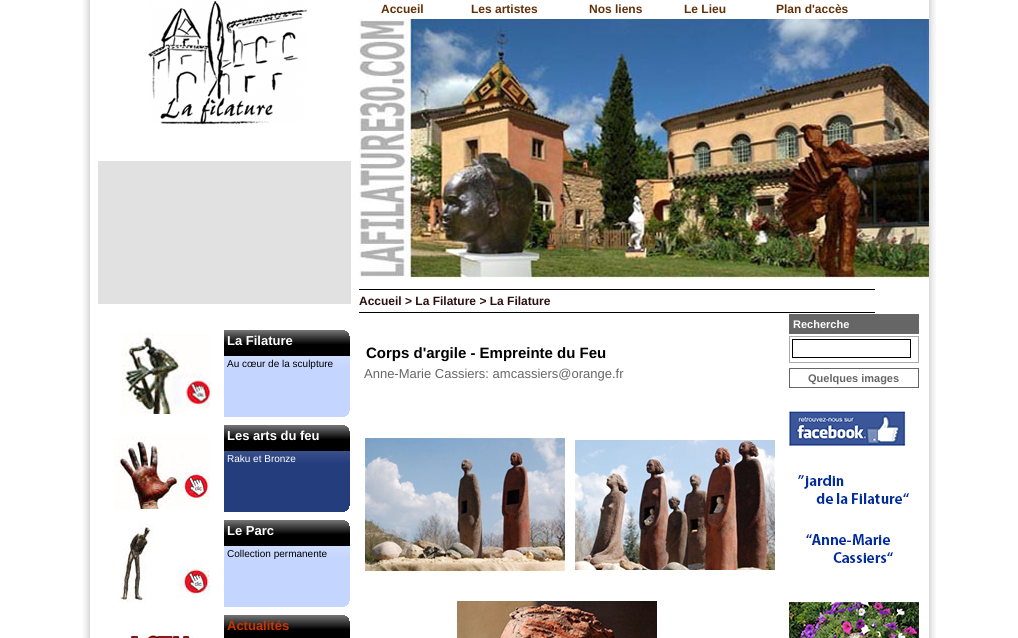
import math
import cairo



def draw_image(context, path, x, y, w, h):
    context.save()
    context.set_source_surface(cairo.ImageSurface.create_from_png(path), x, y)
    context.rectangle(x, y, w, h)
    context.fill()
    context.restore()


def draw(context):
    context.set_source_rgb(1, 1, 1)
    context.paint()
    draw_image(context, "images/1.png", 83, 0, 7, 638)
    draw_image(context, "images/2.png", 359, 19, 570, 259)
    context.set_source_rgb(0, 0, 0)
    context.rectangle(359, 289, 516, 1)
    context.fill()
    context.rectangle(359, 312, 516, 1)
    context.fill()
    draw_image(context, "images/3.png", 365, 438, 200, 133)
    draw_image(context, "images/4.png", 575, 440, 200, 130)
    draw_image(context, "images/5.png", 457, 601, 200, 37)
    context.set_source_rgb(102 / 255, 102 / 255, 102 / 255)
    context.rectangle(789, 314, 130, 20)
    context.fill()
    context.rectangle(789.5, 336.5, 129, 26)
    context.set_source_rgb(170 / 255, 170 / 255, 170 / 255)
    context.set_line_width(1)
    context.stroke()
    context.rectangle(792.5, 339.5, 118, 18)
    context.set_source_rgb(0, 0, 0)
    context.stroke()
    context.rectangle(789.5, 368.5, 129, 19)
    context.set_source_rgb(102 / 255, 102 / 255, 102 / 255)
    context.stroke()
    draw_image(context, "images/6.png", 789, 411, 130, 227)
    draw_image(context, "images/7.png", 148, 1, 160, 124)
    context.set_source_rgb(225 / 255, 225 / 255, 225 / 255)
    context.rectangle(98, 161, 253, 143)
    context.fill()
    draw_image(context, "images/8.png", 122, 333, 90, 81)
    draw_image(context, "images/9.png", 224, 330, 121, 87)
    draw_image(context, "images/10.png", 345, 331, 5, 85)
    draw_image(context, "images/11.png", 114, 436, 96, 73)
    draw_image(context, "images/12.png", 224, 425, 121, 87)
    draw_image(context, "images/13.png", 345, 426, 5, 85)
    draw_image(context, "images/14.png", 118, 523, 92, 80)
    draw_image(context, "images/9.png", 224, 520, 121, 87)
    draw_image(context, "images/10.png", 345, 521, 5, 85)
    draw_image(context, "images/15.png", 224, 615, 121, 23)
    draw_image(context, "images/16.png", 345, 616, 5, 22)
    draw_image(context, "images/17.png", 130, 634, 64, 4)
    draw_image(context, "images/18.png", 929, 0, 7, 638)
    context.select_font_face("Liberation Sans", cairo.FontSlant.NORMAL, cairo.FontWeight.BOLD)
    context.set_font_size(12)
    context.set_source_rgb(98 / 255, 48 / 255, 8 / 255)
    context.move_to(381, 13)
    context.show_text("Accueil")
    context.move_to(471, 13)
    context.show_text("Les artistes")
    context.move_to(589, 13)
    context.show_text("Nos liens")
    context.move_to(684, 13)
    context.show_text("Le Lieu")
    context.move_to(776, 13)
    context.show_text("Plan d'accès")
    context.set_source_rgb(43 / 255, 16 / 255, 15 / 255)
    context.move_to(359, 305)
    context.show_text("Accueil > La Filature > La Filature")
    context.set_font_size(15)
    context.set_source_rgb(0, 0, 0)
    context.move_to(366, 358)
    context.show_text("Corps d'argile - Empreinte du Feu")
    context.select_font_face("Liberation Sans")
    context.set_font_size(13)
    context.set_source_rgb(102 / 255, 102 / 255, 102 / 255)
    context.move_to(364, 378)
    context.show_text("Anne-Marie Cassiers: amcassiers@orange.fr")
    context.select_font_face("Liberation Sans", cairo.FontSlant.NORMAL, cairo.FontWeight.BOLD)
    context.set_font_size(11)
    context.set_source_rgb(1, 1, 1)
    context.move_to(793, 328)
    context.show_text("Recherche")
    context.set_source_rgb(102 / 255, 102 / 255, 102 / 255)
    context.move_to(808, 382)
    context.show_text("Quelques images")
    context.set_font_size(13)
    context.set_source_rgb(1, 1, 1)
    context.move_to(227, 345)
    context.show_text("La Filature")
    context.select_font_face("Liberation Sans")
    context.set_font_size(10)
    context.set_source_rgb(0, 0, 0)
    context.move_to(227, 367)
    context.show_text("Au cœur de la sculpture")
    context.select_font_face("Liberation Sans", cairo.FontSlant.NORMAL, cairo.FontWeight.BOLD)
    context.set_font_size(13)
    context.set_source_rgb(1, 1, 1)
    context.move_to(227, 440)
    context.show_text("Les arts du feu")
    context.select_font_face("Liberation Sans")
    context.set_font_size(10)
    context.move_to(227, 462)
    context.show_text("Raku et Bronze")
    context.select_font_face("Liberation Sans", cairo.FontSlant.NORMAL, cairo.FontWeight.BOLD)
    context.set_font_size(13)
    context.move_to(227, 535)
    context.show_text("Le Parc")
    context.select_font_face("Liberation Sans")
    context.set_font_size(10)
    context.set_source_rgb(0, 0, 0)
    context.move_to(227, 557)
    context.show_text("Collection permanente")
    context.select_font_face("Liberation Sans", cairo.FontSlant.NORMAL, cairo.FontWeight.BOLD)
    context.set_font_size(13)
    context.set_source_rgb(204 / 255, 51 / 255, 0)
    context.move_to(227, 630)
    context.show_text("Actualités")


surface = cairo.ImageSurface(cairo.Format.RGB24, 1018, 638)
context = cairo.Context(surface)
options = cairo.FontOptions()
options.set_hint_metrics(cairo.HintMetrics.OFF)
options.set_hint_style(cairo.HintStyle.NONE)
context.set_font_options(options)
context.set_miter_limit(4)
draw(context)
surface.write_to_png("out.png")
